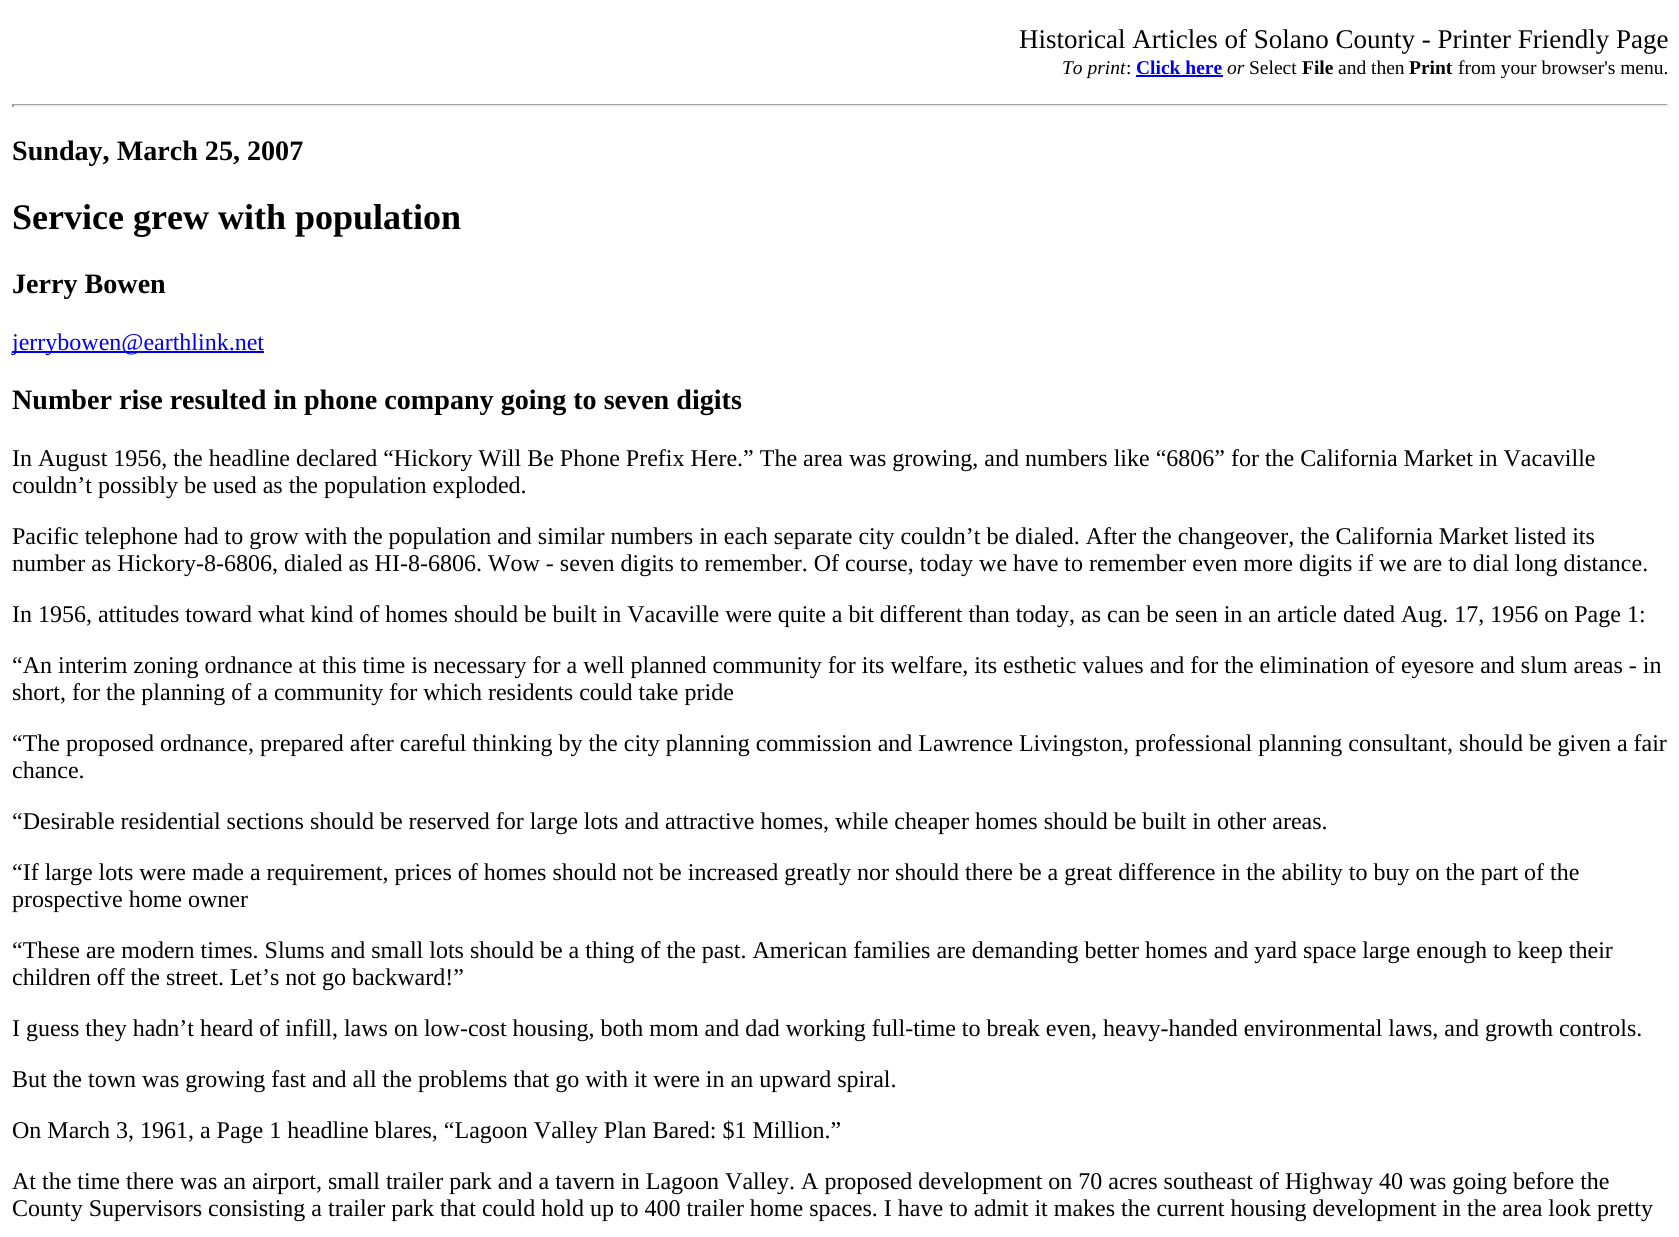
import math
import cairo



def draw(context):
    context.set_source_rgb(1, 1, 1)
    context.paint()
    context.set_source_rgb(0, 0, 238 / 255)
    context.rectangle(1136, 75, 87, 2)
    context.fill()
    context.set_source_rgb(159 / 255, 159 / 255, 159 / 255)
    context.rectangle(12, 104, 1656, 1)
    context.fill()
    context.set_source_rgb(238 / 255, 238 / 255, 238 / 255)
    context.rectangle(1667, 104, 2, 3)
    context.fill()
    context.rectangle(12, 105, 1656, 2)
    context.fill()
    context.set_source_rgb(159 / 255, 159 / 255, 159 / 255)
    context.rectangle(12, 104, 2, 3)
    context.fill()
    context.set_source_rgb(0, 0, 238 / 255)
    context.rectangle(12, 351, 252, 2)
    context.fill()
    context.select_font_face("Liberation Serif")
    context.set_font_size(27)
    context.set_source_rgb(0, 0, 0)
    context.move_to(1019, 48)
    context.show_text("Historical Articles of Solano County - Printer Friendly Page")
    context.select_font_face("Liberation Serif", cairo.FontSlant.ITALIC)
    context.set_font_size(19.5)
    context.move_to(1062, 74)
    context.show_text("To print")
    context.select_font_face("Liberation Serif")
    context.move_to(1126, 74)
    context.show_text(":")
    context.select_font_face("Liberation Serif", cairo.FontSlant.NORMAL, cairo.FontWeight.BOLD)
    context.set_source_rgb(0, 0, 238 / 255)
    context.move_to(1136, 74)
    context.show_text("Click here")
    context.select_font_face("Liberation Serif", cairo.FontSlant.ITALIC)
    context.set_source_rgb(0, 0, 0)
    context.move_to(1227, 74)
    context.show_text("or")
    context.select_font_face("Liberation Serif")
    context.move_to(1249, 74)
    context.show_text("Select")
    context.select_font_face("Liberation Serif", cairo.FontSlant.NORMAL, cairo.FontWeight.BOLD)
    context.move_to(1302, 74)
    context.show_text("File")
    context.select_font_face("Liberation Serif")
    context.move_to(1338, 74)
    context.show_text("and then")
    context.select_font_face("Liberation Serif", cairo.FontSlant.NORMAL, cairo.FontWeight.BOLD)
    context.move_to(1409, 74)
    context.show_text("Print")
    context.select_font_face("Liberation Serif")
    context.move_to(1458, 74)
    context.show_text("from your browser's menu.")
    context.select_font_face("Liberation Serif", cairo.FontSlant.NORMAL, cairo.FontWeight.BOLD)
    context.set_font_size(28.1)
    context.move_to(12, 160)
    context.show_text("Sunday, March 25, 2007")
    context.set_font_size(36)
    context.move_to(12, 229)
    context.show_text("Service grew with population")
    context.set_font_size(28.1)
    context.move_to(12, 293)
    context.show_text("Jerry Bowen")
    context.select_font_face("Liberation Serif")
    context.set_font_size(24)
    context.set_source_rgb(0, 0, 238 / 255)
    context.move_to(12, 350)
    context.show_text("jerrybowen@earthlink.net")
    context.select_font_face("Liberation Serif", cairo.FontSlant.NORMAL, cairo.FontWeight.BOLD)
    context.set_font_size(28.1)
    context.set_source_rgb(0, 0, 0)
    context.move_to(12, 409)
    context.show_text("Number rise resulted in phone company going to seven digits")
    context.select_font_face("Liberation Serif")
    context.set_font_size(24)
    context.move_to(12, 466)
    context.show_text("In August 1956, the headline declared “Hickory Will Be Phone Prefix Here.” The area was growing, and numbers like “6806” for the California Market in Vacaville")
    context.move_to(12, 493)
    context.show_text("couldn’t possibly be used as the population exploded.")
    context.move_to(12, 544)
    context.show_text("Pacific telephone had to grow with the population and similar numbers in each separate city couldn’t be dialed. After the changeover, the California Market listed its")
    context.move_to(12, 571)
    context.show_text("number as Hickory-8-6806, dialed as HI-8-6806. Wow - seven digits to remember. Of course, today we have to remember even more digits if we are to dial long distance.")
    context.move_to(12, 622)
    context.show_text("In 1956, attitudes toward what kind of homes should be built in Vacaville were quite a bit different than today, as can be seen in an article dated Aug. 17, 1956 on Page 1:")
    context.move_to(12, 673)
    context.show_text("“An interim zoning ordnance at this time is necessary for a well planned community for its welfare, its esthetic values and for the elimination of eyesore and slum areas - in")
    context.move_to(12, 700)
    context.show_text("short, for the planning of a community for which residents could take pride")
    context.move_to(12, 751)
    context.show_text("“The proposed ordnance, prepared after careful thinking by the city planning commission and Lawrence Livingston, professional planning consultant, should be given a fair")
    context.move_to(12, 778)
    context.show_text("chance.")
    context.move_to(12, 829)
    context.show_text("“Desirable residential sections should be reserved for large lots and attractive homes, while cheaper homes should be built in other areas.")
    context.move_to(12, 880)
    context.show_text("“If large lots were made a requirement, prices of homes should not be increased greatly nor should there be a great difference in the ability to buy on the part of the")
    context.move_to(12, 907)
    context.show_text("prospective home owner")
    context.move_to(12, 958)
    context.show_text("“These are modern times. Slums and small lots should be a thing of the past. American families are demanding better homes and yard space large enough to keep their")
    context.move_to(12, 985)
    context.show_text("children off the street. Let’s not go backward!”")
    context.move_to(12, 1036)
    context.show_text("I guess they hadn’t heard of infill, laws on low-cost housing, both mom and dad working full-time to break even, heavy-handed environmental laws, and growth controls.")
    context.move_to(12, 1087)
    context.show_text("But the town was growing fast and all the problems that go with it were in an upward spiral.")
    context.move_to(12, 1138)
    context.show_text("On March 3, 1961, a Page 1 headline blares, “Lagoon Valley Plan Bared: $1 Million.”")
    context.move_to(12, 1189)
    context.show_text("At the time there was an airport, small trailer park and a tavern in Lagoon Valley. A proposed development on 70 acres southeast of Highway 40 was going before the")
    context.move_to(12, 1216)
    context.show_text("County Supervisors consisting a trailer park that could hold up to 400 trailer home spaces. I have to admit it makes the current housing development in the area look pretty")


surface = cairo.ImageSurface(cairo.Format.RGB24, 1679, 1237)
context = cairo.Context(surface)
options = cairo.FontOptions()
options.set_hint_metrics(cairo.HintMetrics.OFF)
options.set_hint_style(cairo.HintStyle.NONE)
context.set_font_options(options)
context.set_miter_limit(4)
draw(context)
surface.write_to_png("out.png")
